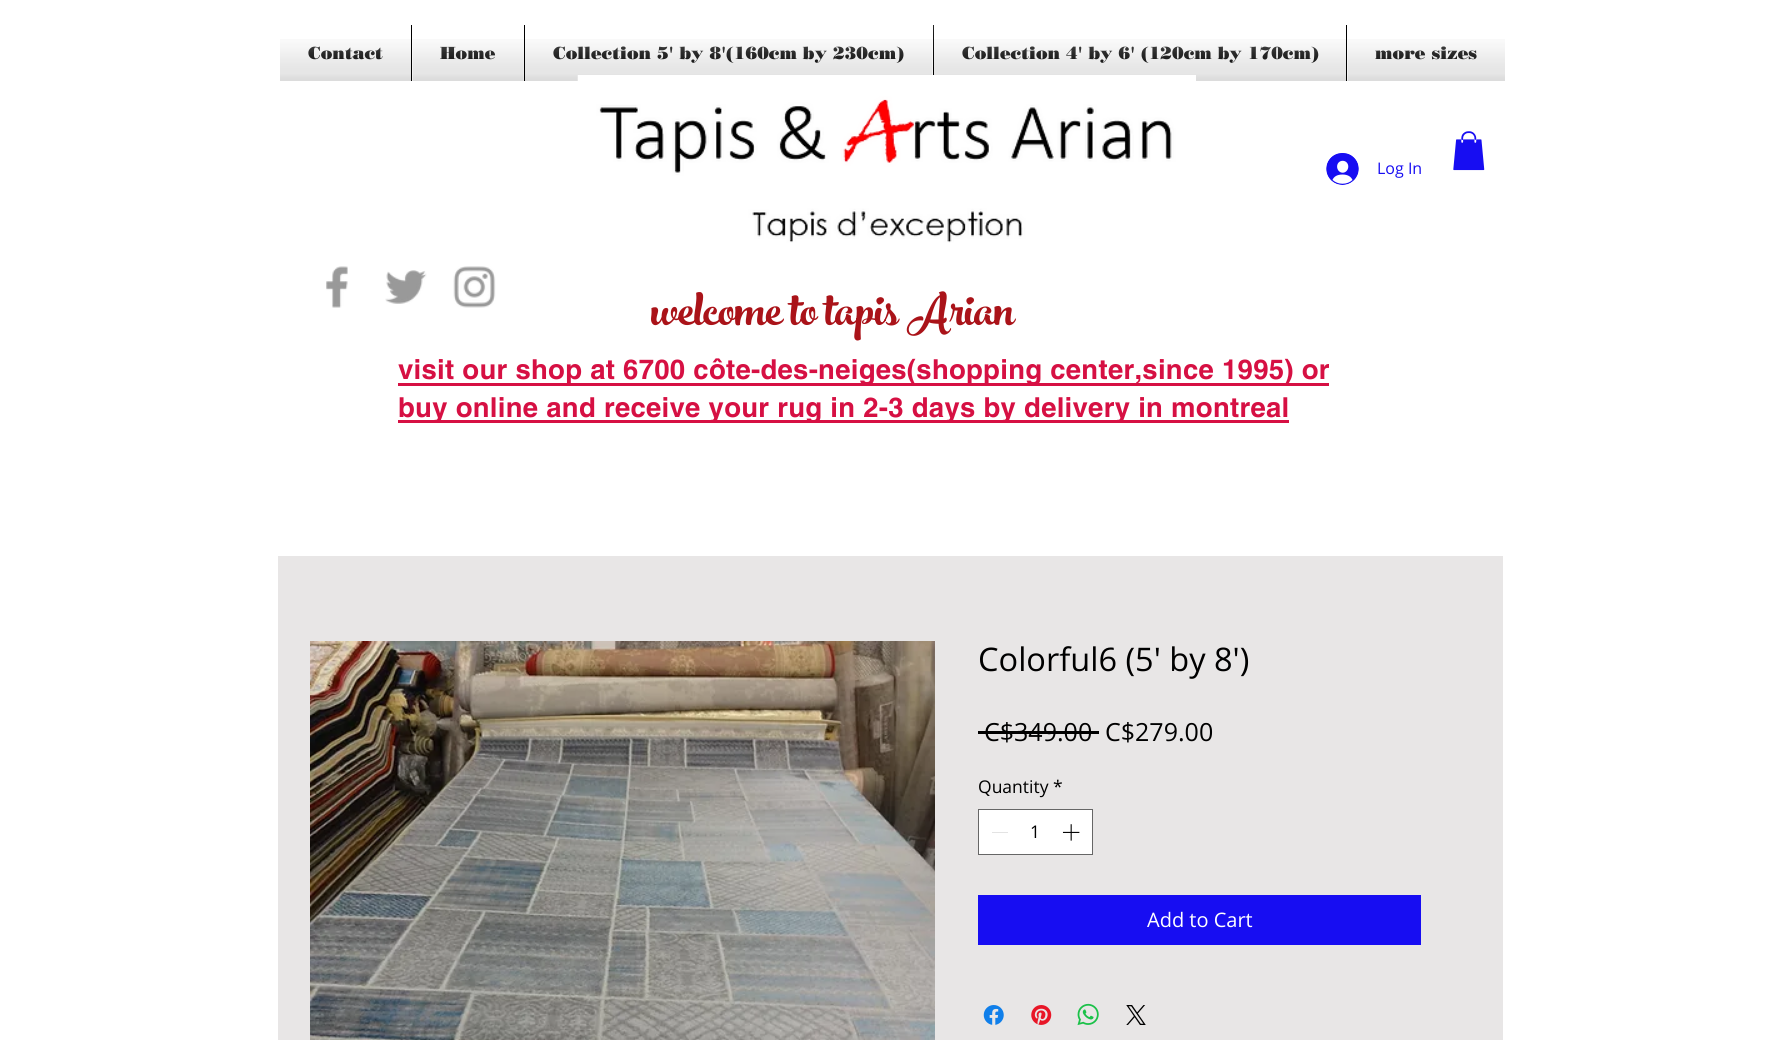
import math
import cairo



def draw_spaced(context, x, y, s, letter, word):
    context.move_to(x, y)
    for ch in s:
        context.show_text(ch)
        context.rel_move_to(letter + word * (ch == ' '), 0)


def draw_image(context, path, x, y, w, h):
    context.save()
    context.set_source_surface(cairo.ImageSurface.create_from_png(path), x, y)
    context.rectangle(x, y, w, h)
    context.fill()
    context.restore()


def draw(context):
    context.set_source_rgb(1, 1, 1)
    context.paint()
    context.set_source_rgb(0, 0, 0)
    context.rectangle(411, 25, 1, 56)
    context.fill()
    context.rectangle(524, 25, 1, 56)
    context.fill()
    context.rectangle(933, 25, 1, 56)
    context.fill()
    context.rectangle(1346, 25, 1, 56)
    context.fill()
    draw_image(context, "images/12.png", 1326, 153, 33, 32)
    draw_image(context, "images/13.png", 1453, 131, 32, 40)
    draw_image(context, "images/14.png", 326, 266, 22, 42)
    draw_image(context, "images/15.png", 385, 270, 42, 34)
    draw_image(context, "images/16.png", 453, 266, 43, 42)
    context.set_source_rgb(214 / 255, 16 / 255, 67 / 255)
    context.rectangle(398, 383, 931, 3)
    context.fill()
    context.rectangle(398, 420, 891, 3)
    context.fill()
    context.set_source_rgb(232 / 255, 230 / 255, 230 / 255)
    context.rectangle(278, 556, 1225, 484)
    context.fill()
    draw_image(context, "images/17.png", 310, 641, 625, 399)
    context.set_source_rgb(0, 0, 0)
    context.rectangle(978, 731, 121, 3)
    context.fill()
    context.set_source_rgb(1, 1, 1)
    context.rectangle(978.5, 809.5, 114, 45)
    context.fill_preserve()
    context.set_source_rgb(102 / 255, 102 / 255, 102 / 255)
    context.set_line_width(1)
    context.stroke()
    context.set_source_rgb(227 / 255, 227 / 255, 227 / 255)
    context.rectangle(992, 832, 16, 1)
    context.fill()
    draw_image(context, "images/18.png", 1062, 824, 18, 17)
    context.set_source_rgb(23 / 255, 13 / 255, 242 / 255)
    context.rectangle(978, 895, 443, 50)
    context.fill()
    draw_image(context, "images/19.png", 983, 1005, 21, 20)
    draw_image(context, "images/20.png", 1031, 1005, 21, 20)
    draw_image(context, "images/21.png", 1077, 1003, 22, 23)
    draw_image(context, "images/22.png", 1126, 1005, 20, 20)
    context.select_font_face("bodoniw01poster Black")
    context.set_font_size(17.5)
    context.set_source_rgb(0, 0, 0)
    context.move_to(308, 59)
    context.show_text("Contact")
    draw_image(context, "images/1.png", 308, 46, 75, 14)
    draw_image(context, "images/2.png", 280, 39, 131, 42)
    context.move_to(440, 59)
    context.show_text("Home")
    draw_image(context, "images/3.png", 440, 46, 56, 14)
    draw_image(context, "images/4.png", 412, 39, 112, 42)
    context.move_to(553, 59)
    context.show_text("Collection 5' by 8'(160cm by 230cm)")
    draw_image(context, "images/5.png", 553, 46, 351, 17)
    draw_image(context, "images/6.png", 525, 39, 408, 42)
    context.move_to(962, 59)
    context.show_text("Collection 4' by 6' (120cm by 170cm)")
    draw_image(context, "images/7.png", 933, 25, 385, 42)
    draw_image(context, "images/8.png", 934, 39, 412, 42)
    context.move_to(1375, 59)
    context.show_text("more sizes")
    draw_image(context, "images/9.png", 1375, 46, 102, 14)
    draw_image(context, "images/10.png", 1347, 39, 158, 42)
    draw_image(context, "images/11.png", 577, 75, 619, 168)
    context.select_font_face("Open Sans")
    context.set_font_size(16)
    context.set_source_rgb(23 / 255, 13 / 255, 242 / 255)
    context.move_to(1377, 174)
    context.show_text("Log In")
    context.select_font_face("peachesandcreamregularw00")
    context.set_font_size(70)
    context.set_source_rgb(170 / 255, 19 / 255, 25 / 255)
    context.move_to(651, 325)
    context.show_text("welcome to tapis Arian")
    context.select_font_face("helvetica", cairo.FontSlant.NORMAL, cairo.FontWeight.BOLD)
    context.set_font_size(27.5)
    context.set_source_rgb(214 / 255, 16 / 255, 67 / 255)
    draw_spaced(context, 398, 379, "visit our shop at 6700 côte-des-neiges(shopping center,since 1995) or", 0.28, 0)
    draw_spaced(context, 398, 417, "buy online and receive your rug in 2-3 days by delivery in montreal", 0.28, 0)
    context.select_font_face("Open Sans")
    context.set_font_size(32.5)
    context.set_source_rgb(0, 0, 0)
    context.move_to(978, 671)
    context.show_text("Colorful6 (5' by 8')")
    context.set_font_size(25)
    context.move_to(984, 741)
    context.show_text("C$349.00")
    context.move_to(1105, 741)
    context.show_text("C$279.00")
    context.set_font_size(17.5)
    context.move_to(978, 793)
    context.show_text("Quantity")
    context.move_to(1053, 793)
    context.show_text("*")
    context.move_to(1030, 838)
    context.show_text("1")
    context.set_font_size(20)
    context.set_source_rgb(1, 1, 1)
    context.move_to(1147, 927)
    context.show_text("Add to Cart")


surface = cairo.ImageSurface(cairo.Format.RGB24, 1779, 1040)
context = cairo.Context(surface)
options = cairo.FontOptions()
options.set_hint_metrics(cairo.HintMetrics.OFF)
options.set_hint_style(cairo.HintStyle.NONE)
context.set_font_options(options)
context.set_miter_limit(4)
draw(context)
surface.write_to_png("out.png")
